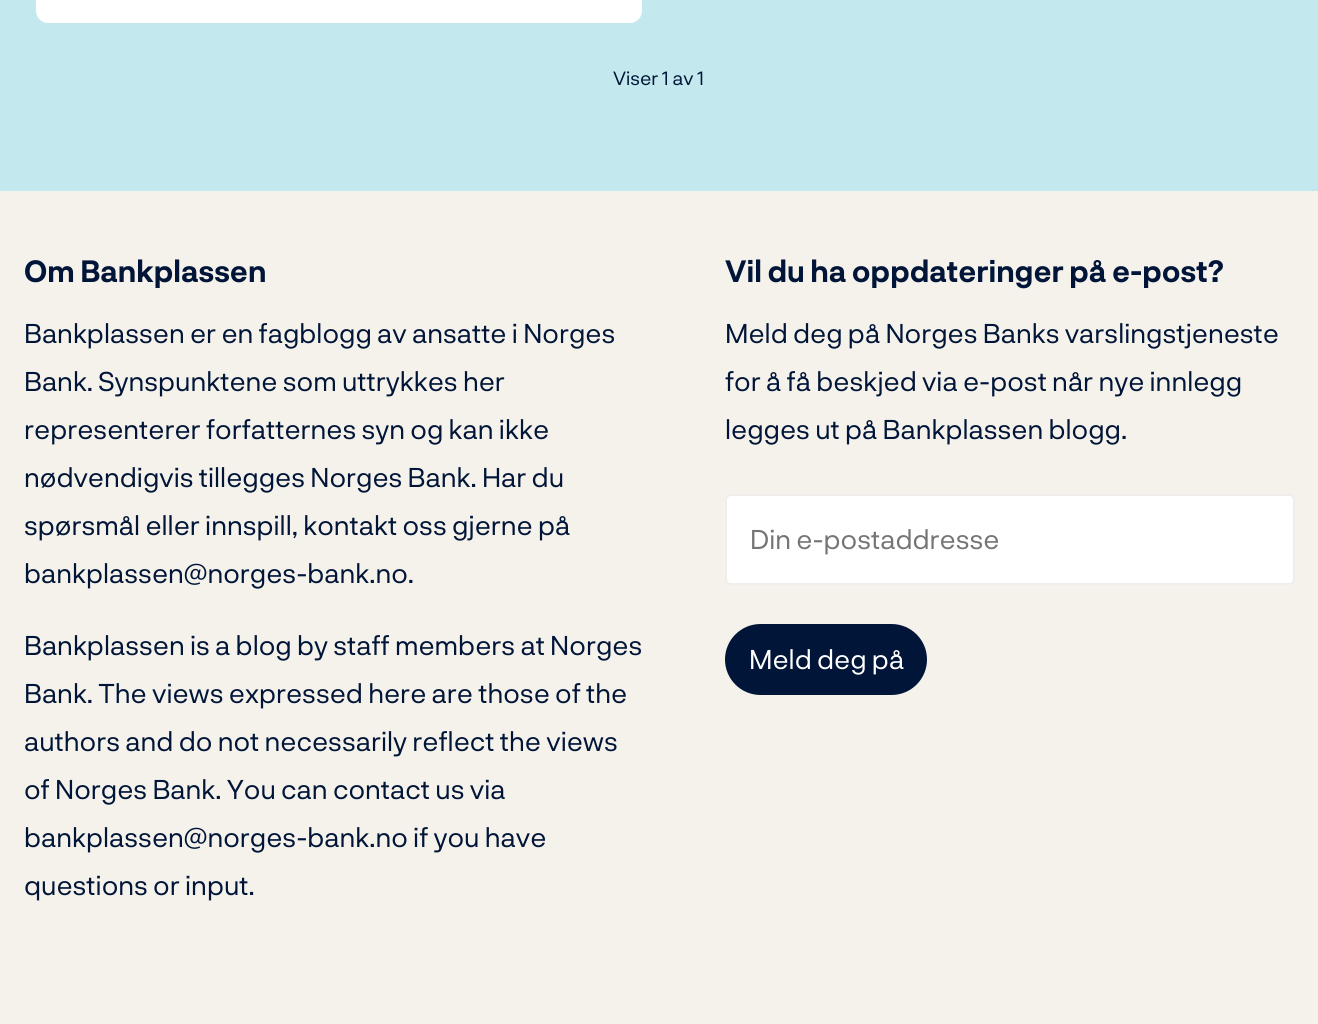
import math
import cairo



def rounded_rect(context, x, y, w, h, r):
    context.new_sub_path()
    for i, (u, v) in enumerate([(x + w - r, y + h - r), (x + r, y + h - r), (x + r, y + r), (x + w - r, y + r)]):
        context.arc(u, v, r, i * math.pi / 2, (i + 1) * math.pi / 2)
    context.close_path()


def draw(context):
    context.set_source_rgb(195 / 255, 233 / 255, 238 / 255)
    context.paint()
    context.set_source_rgb(1, 1, 1)
    context.new_path()
    context.move_to(54, -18)
    context.line_to(624, -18)
    context.curve_to(634, -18, 642, -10, 642, 0)
    context.line_to(642, 11)
    context.curve_to(642, 17.5, 636.5, 23, 630, 23)
    context.line_to(48, 23)
    context.curve_to(41.5, 23, 36, 17.5, 36, 11)
    context.line_to(36, 0)
    context.curve_to(36, -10, 44, -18, 54, -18)
    context.close_path()
    context.fill()
    context.set_source_rgb(245 / 255, 242 / 255, 235 / 255)
    context.rectangle(0, 191, 1318, 833)
    context.fill()
    context.set_source_rgb(1, 1, 1)
    rounded_rect(context, 726, 495, 568, 89, 5)
    context.fill_preserve()
    context.set_source_rgb(240 / 255, 237 / 255, 237 / 255)
    context.stroke()
    context.set_source_rgb(0, 21 / 255, 56 / 255)
    rounded_rect(context, 725, 624, 202, 71, 35.5)
    context.fill()
    context.select_font_face("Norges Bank")
    context.set_font_size(19)
    context.move_to(613, 85)
    context.show_text("Viser 1 av 1")
    context.select_font_face("Norges Bank", cairo.FontSlant.NORMAL, cairo.FontWeight.BOLD)
    context.set_font_size(30)
    context.move_to(24, 282)
    context.show_text("Om Bankplassen")
    context.select_font_face("Norges Bank")
    context.set_font_size(27)
    context.move_to(24, 343)
    context.show_text("Bankplassen er en fagblogg av ansatte i Norges")
    context.move_to(24, 391)
    context.show_text("Bank. Synspunktene som uttrykkes her")
    context.move_to(24, 439)
    context.show_text("representerer forfatternes syn og kan ikke")
    context.move_to(24, 487)
    context.show_text("nødvendigvis tillegges Norges Bank. Har du")
    context.move_to(24, 535)
    context.show_text("spørsmål eller innspill, kontakt oss gjerne på")
    context.move_to(24, 583)
    context.show_text("bankplassen@norges-bank.no.")
    context.move_to(24, 655)
    context.show_text("Bankplassen is a blog by staff members at Norges")
    context.move_to(24, 703)
    context.show_text("Bank. The views expressed here are those of the")
    context.move_to(24, 751)
    context.show_text("authors and do not necessarily reflect the views")
    context.move_to(24, 799)
    context.show_text("of Norges Bank. You can contact us via")
    context.move_to(24, 847)
    context.show_text("bankplassen@norges-bank.no if you have")
    context.move_to(24, 895)
    context.show_text("questions or input.")
    context.select_font_face("Norges Bank", cairo.FontSlant.NORMAL, cairo.FontWeight.BOLD)
    context.set_font_size(30)
    context.move_to(725, 282)
    context.show_text("Vil du ha oppdateringer på e-post?")
    context.select_font_face("Norges Bank")
    context.set_font_size(27)
    context.move_to(725, 343)
    context.show_text("Meld deg på Norges Banks varslingstjeneste")
    context.move_to(725, 391)
    context.show_text("for å få beskjed via e-post når nye innlegg")
    context.move_to(725, 439)
    context.show_text("legges ut på Bankplassen blogg.")
    context.set_source_rgb(117 / 255, 117 / 255, 117 / 255)
    context.move_to(750, 549)
    context.show_text("Din e-postaddresse")
    context.set_source_rgb(1, 1, 1)
    context.move_to(749, 669)
    context.show_text("Meld deg på")


surface = cairo.ImageSurface(cairo.Format.RGB24, 1318, 1024)
context = cairo.Context(surface)
options = cairo.FontOptions()
options.set_hint_metrics(cairo.HintMetrics.OFF)
options.set_hint_style(cairo.HintStyle.NONE)
context.set_font_options(options)
context.set_miter_limit(4)
draw(context)
surface.write_to_png("out.png")
